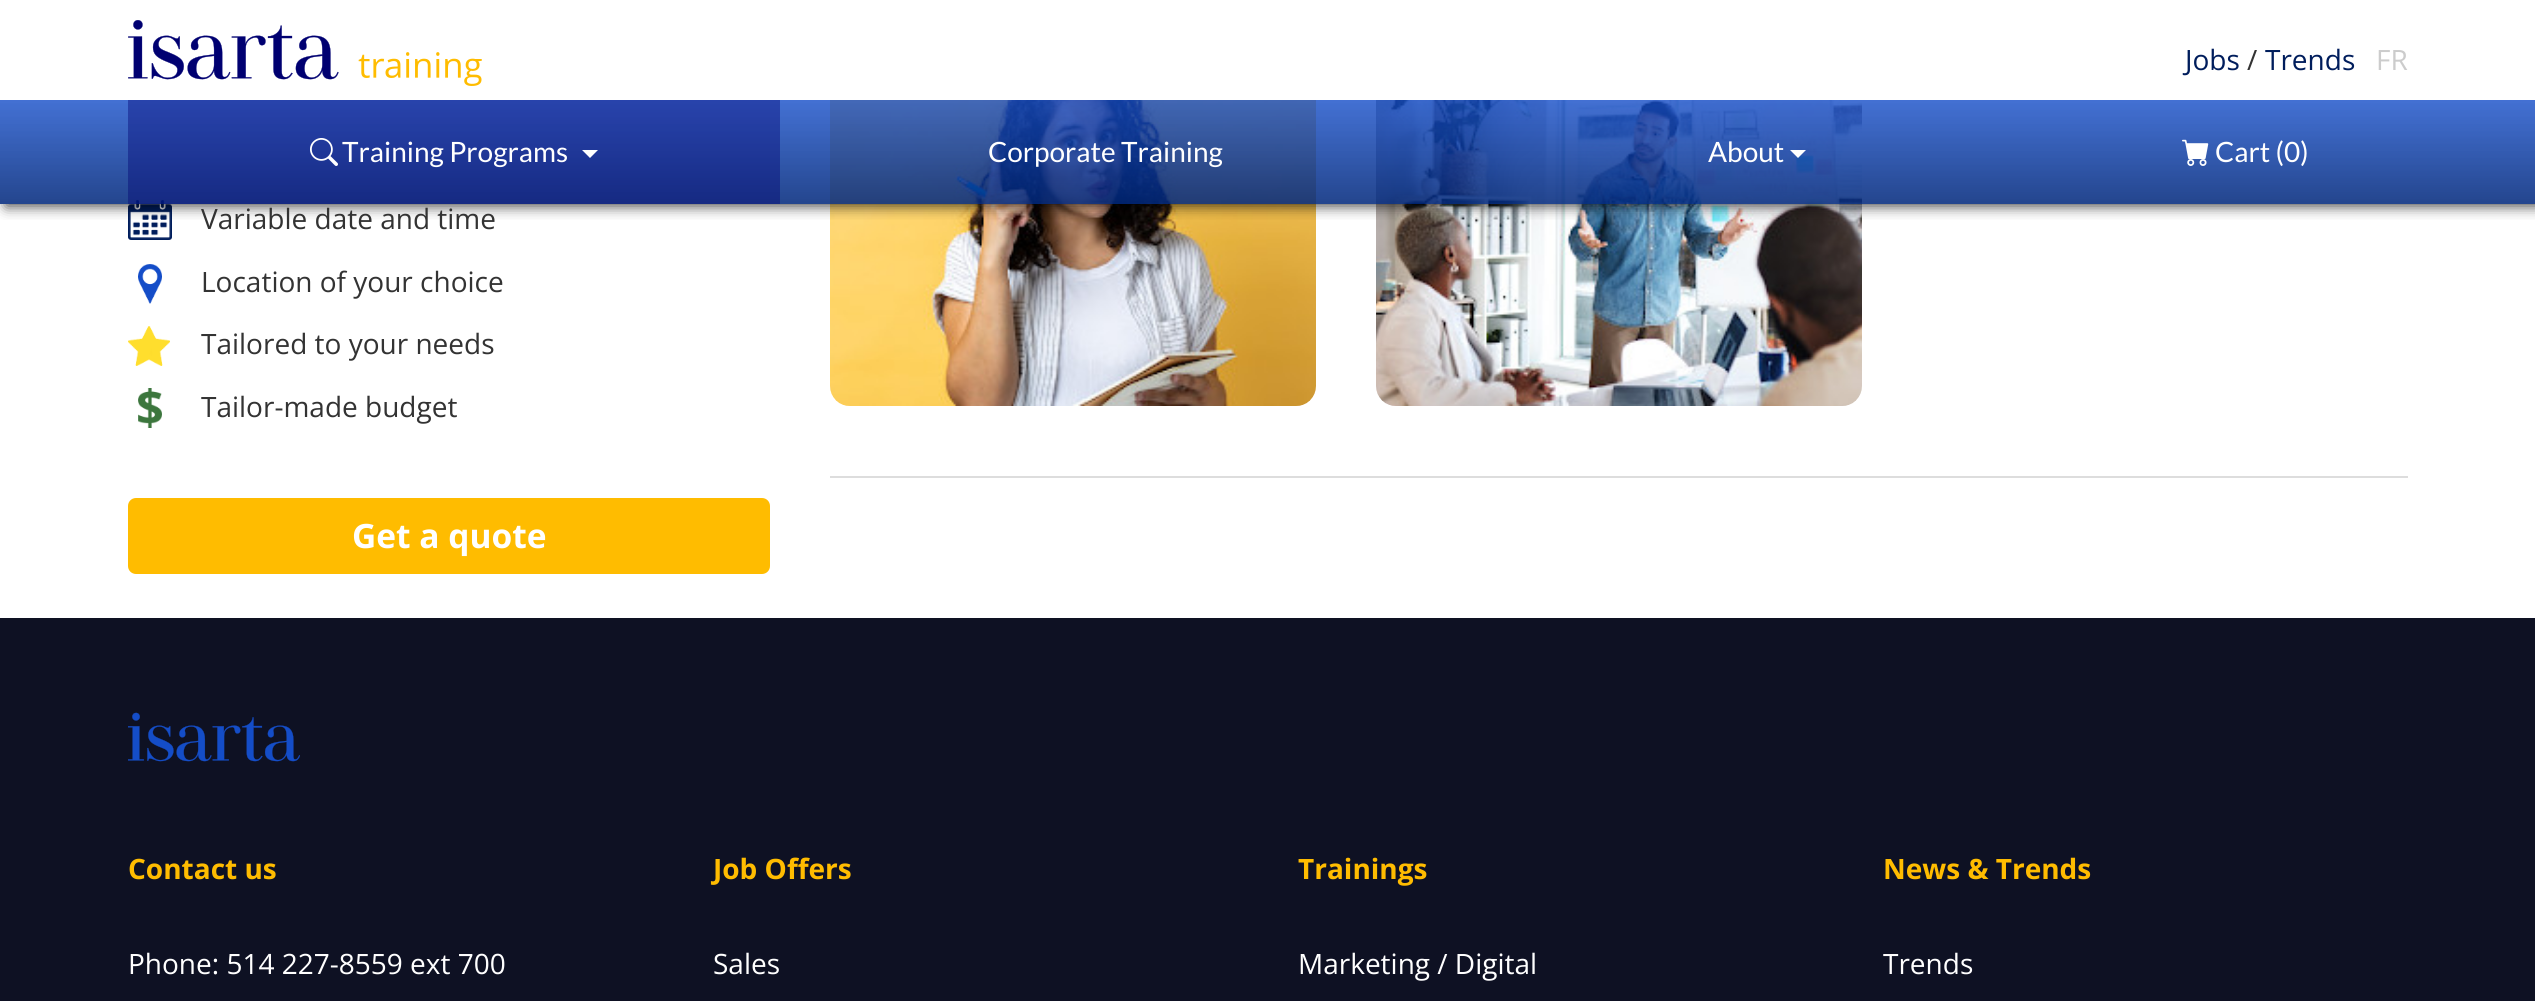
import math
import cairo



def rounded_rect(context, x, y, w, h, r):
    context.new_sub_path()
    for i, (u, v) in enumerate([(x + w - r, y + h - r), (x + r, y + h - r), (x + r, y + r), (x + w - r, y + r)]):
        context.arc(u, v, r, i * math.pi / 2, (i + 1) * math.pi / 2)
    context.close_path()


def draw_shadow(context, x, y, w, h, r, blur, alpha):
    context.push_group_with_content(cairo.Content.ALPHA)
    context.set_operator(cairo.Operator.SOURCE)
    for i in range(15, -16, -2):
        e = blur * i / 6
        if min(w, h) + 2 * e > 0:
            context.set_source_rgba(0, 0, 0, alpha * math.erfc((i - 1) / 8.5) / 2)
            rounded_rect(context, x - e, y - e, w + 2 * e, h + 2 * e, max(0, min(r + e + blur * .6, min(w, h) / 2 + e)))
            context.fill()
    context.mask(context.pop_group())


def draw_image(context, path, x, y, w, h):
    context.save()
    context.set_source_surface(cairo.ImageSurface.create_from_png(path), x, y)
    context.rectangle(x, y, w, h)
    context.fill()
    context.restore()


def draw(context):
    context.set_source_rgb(1, 1, 1)
    context.paint()
    draw_image(context, "images/4.png", 128, 200, 44, 40)
    draw_image(context, "images/8.png", 830, 100, 486, 306)
    draw_image(context, "images/9.png", 1376, 100, 486, 306)
    context.save()
    context.rectangle(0, 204, 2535, 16)
    context.clip()
    context.set_source_rgb(0, 0, 0)
    draw_shadow(context, 6, 106, 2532, 100, 0, 7, 0.75)
    context.restore()
    context.set_source_rgb(1, 1, 1)
    context.rectangle(0, 91, 2535, 9)
    context.fill()
    draw_image(context, "images/1.png", 128, 20, 354, 66)
    gradient = cairo.LinearGradient(1268, 100, 1268, 204)
    gradient.add_color_stop_rgba(0, 20 / 255, 77 / 255, 200 / 255, 0.8)
    gradient.add_color_stop_rgba(1, 0, 39 / 255, 123 / 255, 0.86)
    context.set_source(gradient)
    context.rectangle(0, 100, 2535, 104)
    context.fill()
    context.set_source_rgba(0, 0, 113 / 255, 0.4)
    context.rectangle(128, 100, 652, 104)
    context.fill()
    draw_image(context, "images/2.png", 310, 138, 28, 28)
    context.set_source_rgb(1, 1, 1)
    context.new_path()
    context.move_to(582, 150)
    context.line_to(598, 150)
    context.line_to(590, 158)
    context.close_path()
    context.fill()
    context.new_path()
    context.move_to(1790, 150)
    context.line_to(1806, 150)
    context.line_to(1798, 158)
    context.close_path()
    context.fill()
    draw_image(context, "images/3.png", 2182, 139, 27, 27)
    draw_image(context, "images/5.png", 138, 264, 24, 40)
    draw_image(context, "images/6.png", 128, 326, 42, 40)
    draw_image(context, "images/7.png", 138, 388, 24, 40)
    context.set_source_rgb(1, 188 / 255, 0)
    rounded_rect(context, 129, 499, 640, 74, 7)
    context.fill_preserve()
    context.stroke()
    context.set_source_rgb(221 / 255, 221 / 255, 221 / 255)
    context.rectangle(830, 476, 1578, 2)
    context.fill()
    context.set_source_rgb(14 / 255, 17 / 255, 35 / 255)
    context.rectangle(0, 618, 2535, 383)
    context.fill()
    draw_image(context, "images/10.png", 128, 712, 172, 50)
    context.select_font_face("Open Sans")
    context.set_font_size(28)
    context.set_source_rgb(0, 29 / 255, 92 / 255)
    context.move_to(2185, 70)
    context.show_text("Jobs")
    context.set_source_rgb(51 / 255, 51 / 255, 51 / 255)
    context.move_to(2247, 70)
    context.show_text("/")
    context.set_source_rgb(0, 29 / 255, 92 / 255)
    context.move_to(2265, 70)
    context.show_text("Trends")
    context.set_source_rgb(204 / 255, 204 / 255, 204 / 255)
    context.move_to(2376, 70)
    context.show_text("FR")
    context.select_font_face("Lato")
    context.set_source_rgb(1, 1, 1)
    context.move_to(342, 162)
    context.show_text("Training Programs")
    context.move_to(988, 162)
    context.show_text("Corporate Training")
    context.move_to(1708, 162)
    context.show_text("About")
    context.move_to(2215, 162)
    context.show_text("Cart (0)")
    context.select_font_face("Open Sans")
    context.set_source_rgb(51 / 255, 51 / 255, 51 / 255)
    context.move_to(201, 229)
    context.show_text("Variable date and time")
    context.move_to(201, 292)
    context.show_text("Location of your choice")
    context.move_to(201, 354)
    context.show_text("Tailored to your needs")
    context.move_to(201, 417)
    context.show_text("Tailor-made budget")
    context.select_font_face("Open Sans", cairo.FontSlant.NORMAL, cairo.FontWeight.BOLD)
    context.set_font_size(33.5)
    context.set_source_rgb(1, 1, 1)
    context.move_to(352, 548)
    context.show_text("Get a quote")
    context.set_font_size(28)
    context.set_source_rgb(1, 188 / 255, 0)
    context.move_to(128, 879)
    context.show_text("Contact us")
    context.select_font_face("Open Sans")
    context.set_source_rgb(1, 1, 1)
    context.move_to(128, 974)
    context.show_text("Phone: 514 227-8559 ext 700")
    context.select_font_face("Open Sans", cairo.FontSlant.NORMAL, cairo.FontWeight.BOLD)
    context.set_source_rgb(1, 188 / 255, 0)
    context.move_to(713, 879)
    context.show_text("Job Offers")
    context.select_font_face("Open Sans")
    context.set_source_rgb(1, 1, 1)
    context.move_to(713, 974)
    context.show_text("Sales")
    context.select_font_face("Open Sans", cairo.FontSlant.NORMAL, cairo.FontWeight.BOLD)
    context.set_source_rgb(1, 188 / 255, 0)
    context.move_to(1298, 879)
    context.show_text("Trainings")
    context.select_font_face("Open Sans")
    context.set_source_rgb(1, 1, 1)
    context.move_to(1298, 974)
    context.show_text("Marketing / Digital")
    context.select_font_face("Open Sans", cairo.FontSlant.NORMAL, cairo.FontWeight.BOLD)
    context.set_source_rgb(1, 188 / 255, 0)
    context.move_to(1883, 879)
    context.show_text("News & Trends")
    context.select_font_face("Open Sans")
    context.set_source_rgb(1, 1, 1)
    context.move_to(1883, 974)
    context.show_text("Trends")


surface = cairo.ImageSurface(cairo.Format.RGB24, 2535, 1001)
context = cairo.Context(surface)
options = cairo.FontOptions()
options.set_hint_metrics(cairo.HintMetrics.OFF)
options.set_hint_style(cairo.HintStyle.NONE)
context.set_font_options(options)
context.set_miter_limit(4)
draw(context)
surface.write_to_png("out.png")
